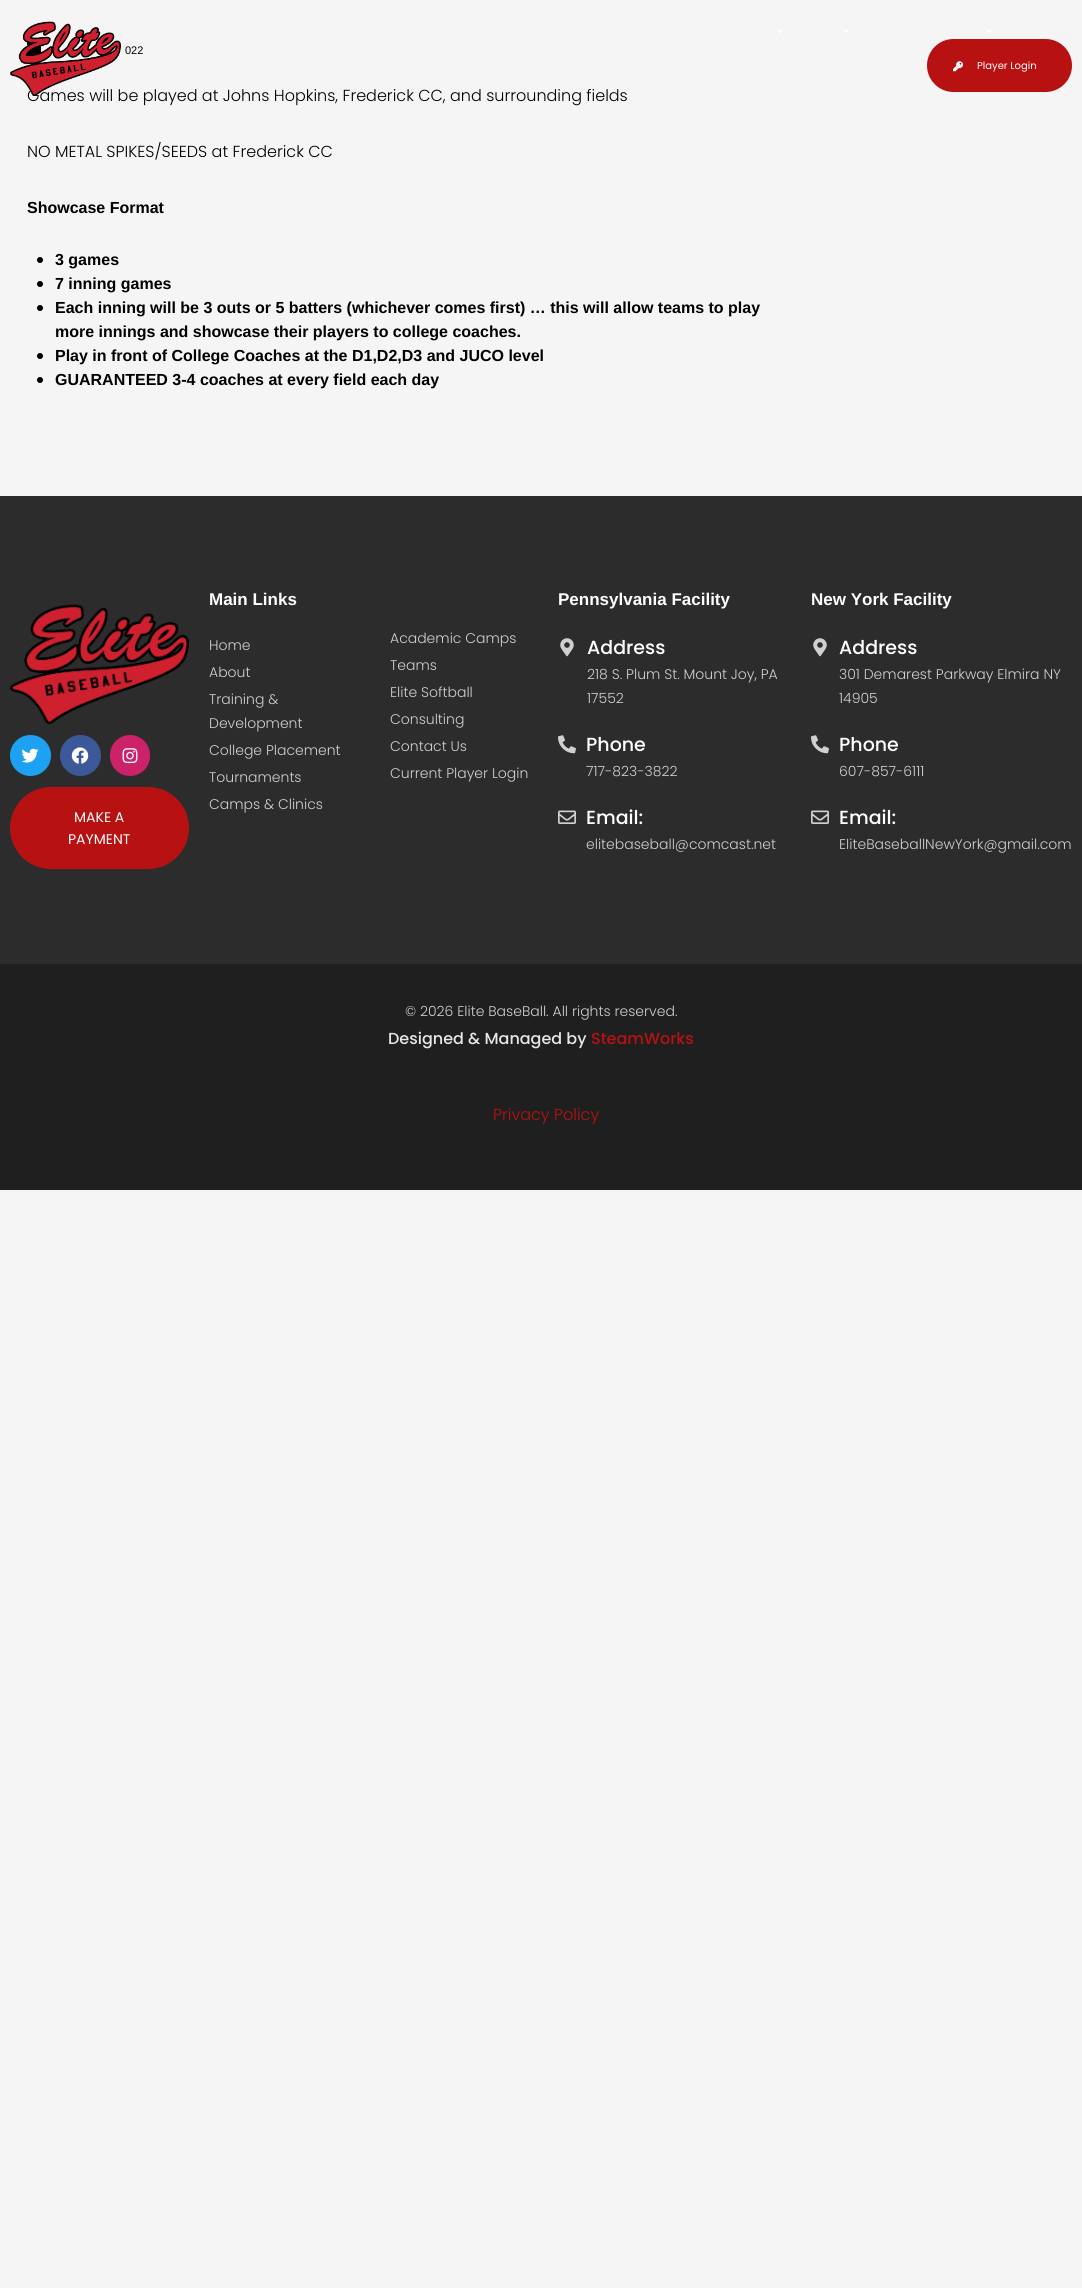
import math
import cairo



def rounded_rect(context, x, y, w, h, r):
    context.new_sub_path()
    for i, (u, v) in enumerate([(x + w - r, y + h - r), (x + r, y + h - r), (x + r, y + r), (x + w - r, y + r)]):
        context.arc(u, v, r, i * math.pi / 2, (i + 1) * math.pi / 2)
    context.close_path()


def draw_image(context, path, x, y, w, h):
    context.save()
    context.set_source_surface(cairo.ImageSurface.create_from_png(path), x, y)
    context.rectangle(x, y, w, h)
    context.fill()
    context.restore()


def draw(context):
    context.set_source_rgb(245 / 255, 245 / 255, 245 / 255)
    context.paint()
    draw_image(context, "images/1.png", 27, 42, 14, 13)
    context.set_source_rgb(0, 0, 0)
    context.arc(40, 260, 3, 0, 2 * math.pi)
    context.fill()
    context.arc(40, 284, 3, 0, 2 * math.pi)
    context.fill()
    context.arc(40, 308, 3, 0, 2 * math.pi)
    context.fill()
    context.arc(40, 356, 3, 0, 2 * math.pi)
    context.fill()
    context.arc(40, 380, 3, 0, 2 * math.pi)
    context.fill()
    draw_image(context, "images/3.png", 777, 30, 6, 3)
    draw_image(context, "images/3.png", 843, 30, 6, 3)
    draw_image(context, "images/3.png", 986, 30, 6, 3)
    context.set_source_rgb(183 / 255, 17 / 255, 17 / 255)
    rounded_rect(context, 927, 39, 145, 53, 26.5)
    context.fill()
    draw_image(context, "images/4.png", 953, 61, 10, 11)
    context.set_source_rgb(44 / 255, 44 / 255, 44 / 255)
    context.rectangle(0, 496, 1082, 468)
    context.fill()
    draw_image(context, "images/5.png", 560, 638, 14, 19)
    draw_image(context, "images/6.png", 558, 735, 18, 19)
    draw_image(context, "images/7.png", 558, 810, 18, 14)
    draw_image(context, "images/5.png", 813, 638, 14, 19)
    draw_image(context, "images/6.png", 811, 735, 18, 19)
    draw_image(context, "images/7.png", 811, 810, 18, 14)
    draw_image(context, "images/8.png", 10, 604, 179, 120)
    context.set_source_rgb(29 / 255, 161 / 255, 242 / 255)
    context.arc(30.5, 755.5, 20.5, 0, 2 * math.pi)
    context.fill()
    draw_image(context, "images/9.png", 21, 748, 18, 15)
    context.set_source_rgb(59 / 255, 89 / 255, 152 / 255)
    context.arc(80.5, 755.5, 20.5, 0, 2 * math.pi)
    context.fill()
    draw_image(context, "images/10.png", 71, 747, 18, 17)
    context.set_source_rgb(203 / 255, 34 / 255, 105 / 255)
    rounded_rect(context, 110, 735, 40, 41, 20)
    context.fill()
    draw_image(context, "images/11.png", 122, 748, 16, 16)
    context.set_source_rgb(183 / 255, 17 / 255, 17 / 255)
    rounded_rect(context, 10.5, 787.5, 178, 81, 40.5)
    context.fill_preserve()
    context.set_line_width(1)
    context.stroke()
    context.set_source_rgb(31 / 255, 31 / 255, 31 / 255)
    context.rectangle(0, 964, 1082, 226)
    context.fill()
    context.select_font_face("Liberation Sans")
    context.set_font_size(11)
    context.set_source_rgb(0, 0, 0)
    context.move_to(125, 54)
    context.show_text("022")
    context.select_font_face("Poppins Light")
    context.set_font_size(16)
    context.move_to(27, 101)
    context.show_text("Games will be played at Johns Hopkins, Frederick CC, and surrounding fields")
    context.move_to(27, 157)
    context.show_text("NO METAL SPIKES/SEEDS at Frederick CC")
    context.select_font_face("Liberation Sans", cairo.FontSlant.NORMAL, cairo.FontWeight.BOLD)
    context.move_to(27, 213)
    context.show_text("Showcase Format")
    context.move_to(55, 265)
    context.show_text("3 games")
    context.move_to(55, 289)
    context.show_text("7 inning games")
    context.move_to(55, 313)
    context.show_text("Each inning will be 3 outs or 5 batters (whichever comes first) … this will allow teams to play")
    context.move_to(55, 337)
    context.show_text("more innings and showcase their players to college coaches.")
    context.move_to(55, 361)
    context.show_text("Play in front of College Coaches at the D1,D2,D3 and JUCO level")
    context.move_to(55, 385)
    context.show_text("GUARANTEED 3-4 coaches at every field each day")
    draw_image(context, "images/2.png", 10, 21, 111, 75)
    context.select_font_face("Poppins")
    context.set_font_size(10)
    context.set_source_rgb(1, 1, 1)
    context.move_to(977, 69)
    context.show_text("Player Login")
    context.select_font_face("Liberation Sans", cairo.FontSlant.NORMAL, cairo.FontWeight.BOLD)
    context.set_font_size(17)
    context.move_to(209, 605)
    context.show_text("Main Links")
    context.select_font_face("Poppins Light")
    context.set_font_size(14)
    context.set_source_rgb(208 / 255, 208 / 255, 208 / 255)
    context.move_to(209, 650)
    context.show_text("Home")
    context.move_to(209, 677)
    context.show_text("About")
    context.move_to(209, 704)
    context.show_text("Training &")
    context.move_to(209, 728)
    context.show_text("Development")
    context.move_to(209, 755)
    context.show_text("College Placement")
    context.move_to(209, 782)
    context.show_text("Tournaments")
    context.move_to(209, 809)
    context.show_text("Camps & Clinics")
    context.move_to(390, 643)
    context.show_text("Academic Camps")
    context.move_to(390, 670)
    context.show_text("Teams")
    context.move_to(390, 697)
    context.show_text("Elite Softball")
    context.move_to(390, 724)
    context.show_text("Consulting")
    context.move_to(390, 751)
    context.show_text("Contact Us")
    context.move_to(390, 778)
    context.show_text("Current Player Login")
    context.select_font_face("Liberation Sans", cairo.FontSlant.NORMAL, cairo.FontWeight.BOLD)
    context.set_font_size(17)
    context.set_source_rgb(1, 1, 1)
    context.move_to(558, 605)
    context.show_text("Pennsylvania Facility")
    context.select_font_face("Poppins Medium")
    context.set_font_size(19)
    context.move_to(587, 654)
    context.show_text("Address")
    context.select_font_face("Poppins Light")
    context.set_font_size(14)
    context.set_source_rgb(208 / 255, 208 / 255, 208 / 255)
    context.move_to(587, 679)
    context.show_text("218 S. Plum St. Mount Joy, PA")
    context.move_to(587, 703)
    context.show_text("17552")
    context.select_font_face("Poppins Medium")
    context.set_font_size(19)
    context.set_source_rgb(1, 1, 1)
    context.move_to(586, 751)
    context.show_text("Phone")
    context.select_font_face("Poppins Light")
    context.set_font_size(14)
    context.set_source_rgb(208 / 255, 208 / 255, 208 / 255)
    context.move_to(586, 776)
    context.show_text("717-823-3822")
    context.select_font_face("Poppins Medium")
    context.set_font_size(19)
    context.set_source_rgb(1, 1, 1)
    context.move_to(586, 824)
    context.show_text("Email:")
    context.select_font_face("Poppins Light")
    context.set_font_size(14)
    context.set_source_rgb(208 / 255, 208 / 255, 208 / 255)
    context.move_to(586, 849)
    context.show_text("elitebaseball@comcast.net")
    context.select_font_face("Liberation Sans", cairo.FontSlant.NORMAL, cairo.FontWeight.BOLD)
    context.set_font_size(17)
    context.set_source_rgb(1, 1, 1)
    context.move_to(811, 605)
    context.show_text("New York Facility")
    context.select_font_face("Poppins Medium")
    context.set_font_size(19)
    context.move_to(839, 654)
    context.show_text("Address")
    context.select_font_face("Poppins Light")
    context.set_font_size(14)
    context.set_source_rgb(208 / 255, 208 / 255, 208 / 255)
    context.move_to(839, 679)
    context.show_text("301 Demarest Parkway Elmira NY")
    context.move_to(839, 703)
    context.show_text("14905")
    context.select_font_face("Poppins Medium")
    context.set_font_size(19)
    context.set_source_rgb(1, 1, 1)
    context.move_to(839, 751)
    context.show_text("Phone")
    context.select_font_face("Poppins Light")
    context.set_font_size(14)
    context.set_source_rgb(208 / 255, 208 / 255, 208 / 255)
    context.move_to(839, 776)
    context.show_text("607-857-6111")
    context.select_font_face("Poppins Medium")
    context.set_font_size(19)
    context.set_source_rgb(1, 1, 1)
    context.move_to(839, 824)
    context.show_text("Email:")
    context.select_font_face("Poppins Light")
    context.set_font_size(14)
    context.set_source_rgb(208 / 255, 208 / 255, 208 / 255)
    context.move_to(839, 849)
    context.show_text("EliteBaseballNewYork@gmail.com")
    context.select_font_face("Poppins")
    context.set_source_rgb(1, 1, 1)
    context.move_to(74, 822)
    context.show_text("MAKE A")
    context.move_to(68, 844)
    context.show_text("PAYMENT")
    context.select_font_face("Poppins Light")
    context.set_source_rgb(208 / 255, 208 / 255, 208 / 255)
    context.move_to(405, 1016)
    context.show_text("© 2026 Elite BaseBall. All rights reserved.")
    context.select_font_face("Poppins Medium")
    context.set_font_size(16)
    context.set_source_rgb(231 / 255, 231 / 255, 231 / 255)
    context.move_to(388, 1044)
    context.show_text("Designed & Managed by")
    context.set_source_rgb(183 / 255, 17 / 255, 17 / 255)
    context.move_to(591, 1044)
    context.show_text("SteamWorks")
    context.select_font_face("Poppins Light")
    context.move_to(493, 1120)
    context.show_text("Privacy Policy")


surface = cairo.ImageSurface(cairo.Format.RGB24, 1082, 2288)
context = cairo.Context(surface)
options = cairo.FontOptions()
options.set_hint_metrics(cairo.HintMetrics.OFF)
options.set_hint_style(cairo.HintStyle.NONE)
context.set_font_options(options)
context.set_miter_limit(4)
draw(context)
surface.write_to_png("out.png")
